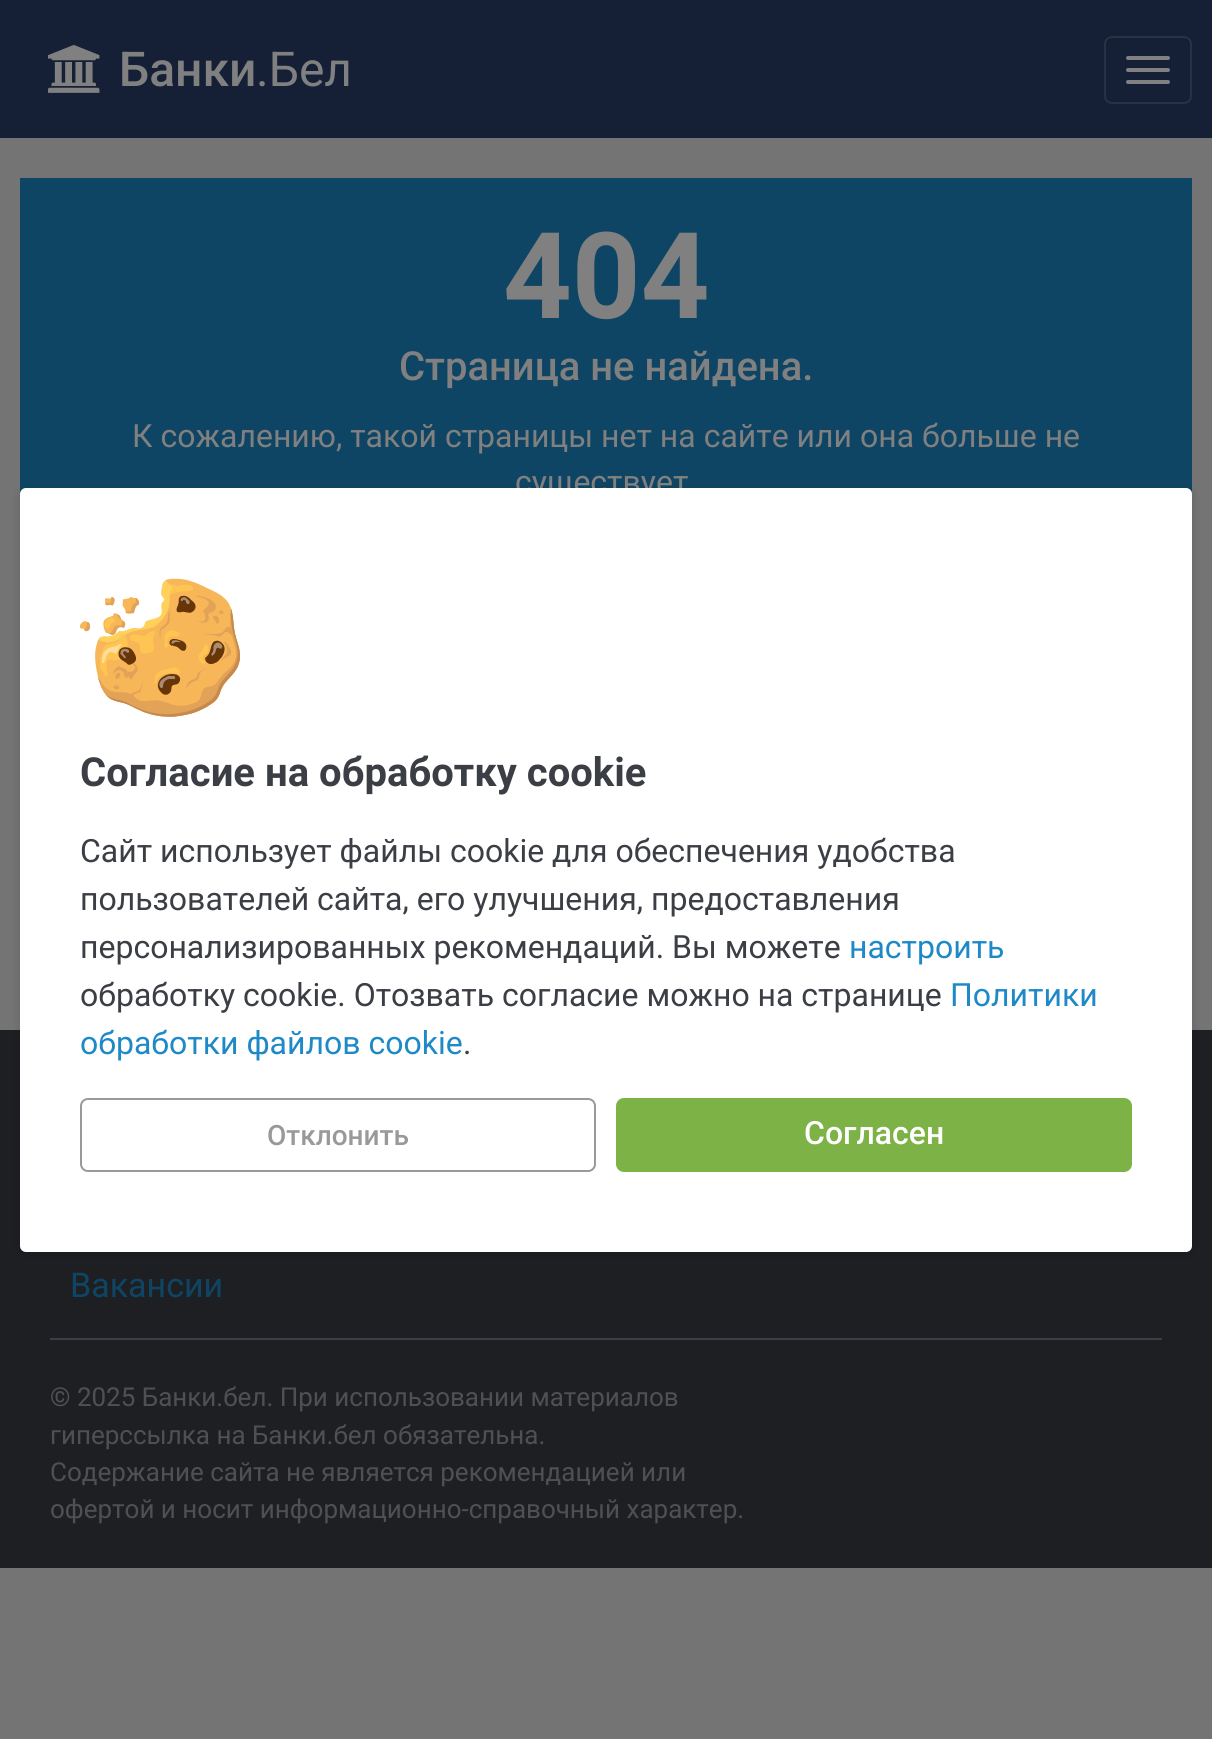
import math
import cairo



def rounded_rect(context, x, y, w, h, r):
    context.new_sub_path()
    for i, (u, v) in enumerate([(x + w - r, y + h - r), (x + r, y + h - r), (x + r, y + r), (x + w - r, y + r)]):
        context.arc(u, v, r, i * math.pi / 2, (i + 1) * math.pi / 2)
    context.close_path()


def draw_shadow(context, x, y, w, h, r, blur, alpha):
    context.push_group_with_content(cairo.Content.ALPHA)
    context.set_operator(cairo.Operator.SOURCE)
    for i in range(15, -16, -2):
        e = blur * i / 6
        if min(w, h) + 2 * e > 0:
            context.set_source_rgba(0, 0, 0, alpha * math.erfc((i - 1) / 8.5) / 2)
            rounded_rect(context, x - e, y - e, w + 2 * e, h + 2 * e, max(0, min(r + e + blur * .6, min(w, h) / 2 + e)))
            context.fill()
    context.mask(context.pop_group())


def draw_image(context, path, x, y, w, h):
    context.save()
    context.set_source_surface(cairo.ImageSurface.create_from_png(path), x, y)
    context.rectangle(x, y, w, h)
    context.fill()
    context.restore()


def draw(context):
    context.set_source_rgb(116 / 255, 116 / 255, 116 / 255)
    context.paint()
    context.set_source_rgb(21 / 255, 31 / 255, 53 / 255)
    context.rectangle(0, 0, 1212, 138)
    context.fill()
    draw_image(context, "images/1.png", 48, 44, 52, 49)
    rounded_rect(context, 1105, 37, 86, 66, 7)
    context.set_source_rgb(41 / 255, 50 / 255, 68 / 255)
    context.stroke()
    context.set_source_rgb(128 / 255, 128 / 255, 128 / 255)
    rounded_rect(context, 1126, 56, 44, 4, 2)
    context.fill()
    rounded_rect(context, 1126, 68, 44, 4, 2)
    context.fill()
    rounded_rect(context, 1126, 80, 44, 4, 2)
    context.fill()
    context.set_source_rgb(15 / 255, 69 / 255, 100 / 255)
    context.rectangle(20, 178, 1172, 316)
    context.fill()
    context.set_source_rgb(30 / 255, 31 / 255, 34 / 255)
    context.rectangle(0, 1030, 1212, 538)
    context.fill()
    context.set_source_rgb(0, 0, 0)
    draw_shadow(context, 20, 490, 1172, 764, 6, 5, 0.15)
    context.set_source_rgb(59 / 255, 62 / 255, 68 / 255)
    context.rectangle(50, 1338, 1112, 2)
    context.fill()
    context.select_font_face("Roboto Medium")
    context.set_font_size(48)
    context.set_source_rgb(128 / 255, 128 / 255, 128 / 255)
    context.move_to(119, 86)
    context.show_text("Банки")
    context.select_font_face("Roboto")
    context.move_to(256, 86)
    context.show_text(".Бел")
    context.select_font_face("Roboto", cairo.FontSlant.NORMAL, cairo.FontWeight.BOLD)
    context.set_font_size(120)
    context.move_to(503, 318)
    context.show_text("404")
    context.select_font_face("Roboto Medium")
    context.set_font_size(40)
    context.move_to(399, 380)
    context.show_text("Страница не найдена.")
    context.select_font_face("Roboto")
    context.set_font_size(32)
    context.move_to(132, 447)
    context.show_text("К сожалению, такой страницы нет на сайте или она больше не")
    context.move_to(515, 493)
    context.show_text("существует")
    context.set_source_rgb(1, 1, 1)
    rounded_rect(context, 20, 488, 1172, 764, 6)
    context.fill()
    draw_image(context, "images/2.png", 80, 578, 160, 139)
    context.select_font_face("Roboto", cairo.FontSlant.NORMAL, cairo.FontWeight.BOLD)
    context.set_font_size(40)
    context.set_source_rgb(59 / 255, 62 / 255, 68 / 255)
    context.move_to(80, 786)
    context.show_text("Согласие на обработку cookie")
    context.select_font_face("Roboto")
    context.set_font_size(32)
    context.move_to(80, 862)
    context.show_text("Сайт использует файлы cookie для обеспечения удобства")
    context.move_to(80, 910)
    context.show_text("пользователей сайта, его улучшения, предоставления")
    context.move_to(80, 958)
    context.show_text("персонализированных рекомендаций. Вы можете")
    context.set_source_rgb(30 / 255, 137 / 255, 199 / 255)
    context.move_to(849, 958)
    context.show_text("настроить")
    context.set_source_rgb(59 / 255, 62 / 255, 68 / 255)
    context.move_to(80, 1006)
    context.show_text("обработку cookie. Отозвать согласие можно на странице")
    context.set_source_rgb(30 / 255, 137 / 255, 199 / 255)
    context.move_to(950, 1006)
    context.show_text("Политики")
    context.move_to(80, 1054)
    context.show_text("обработки файлов cookie")
    context.set_source_rgb(59 / 255, 62 / 255, 68 / 255)
    context.move_to(463, 1054)
    context.show_text(".")
    rounded_rect(context, 81, 1099, 514, 72, 7)
    context.set_source_rgb(153 / 255, 153 / 255, 153 / 255)
    context.stroke()
    context.select_font_face("Roboto Medium")
    context.set_font_size(28)
    context.move_to(267, 1145)
    context.show_text("Отклонить")
    context.set_source_rgb(125 / 255, 179 / 255, 70 / 255)
    rounded_rect(context, 616, 1098, 516, 74, 8)
    context.fill()
    context.set_font_size(32)
    context.set_source_rgb(1, 1, 1)
    context.move_to(804, 1144)
    context.show_text("Согласен")
    context.select_font_face("Roboto")
    context.set_font_size(34)
    context.set_source_rgb(15 / 255, 69 / 255, 100 / 255)
    context.move_to(70, 1297)
    context.show_text("Вакансии")
    context.set_font_size(26)
    context.set_source_rgb(79 / 255, 80 / 255, 81 / 255)
    context.move_to(50, 1406)
    context.show_text("© 2025 Банки.бел. При использовании материалов")
    context.move_to(50, 1444)
    context.show_text("гиперссылка на Банки.бел обязательна.")
    context.move_to(50, 1481)
    context.show_text("Содержание сайта не является рекомендацией или")
    context.move_to(50, 1518)
    context.show_text("офертой и носит информационно-справочный характер.")


surface = cairo.ImageSurface(cairo.Format.RGB24, 1212, 1739)
context = cairo.Context(surface)
options = cairo.FontOptions()
options.set_hint_metrics(cairo.HintMetrics.OFF)
options.set_hint_style(cairo.HintStyle.NONE)
context.set_font_options(options)
context.set_miter_limit(4)
draw(context)
surface.write_to_png("out.png")
